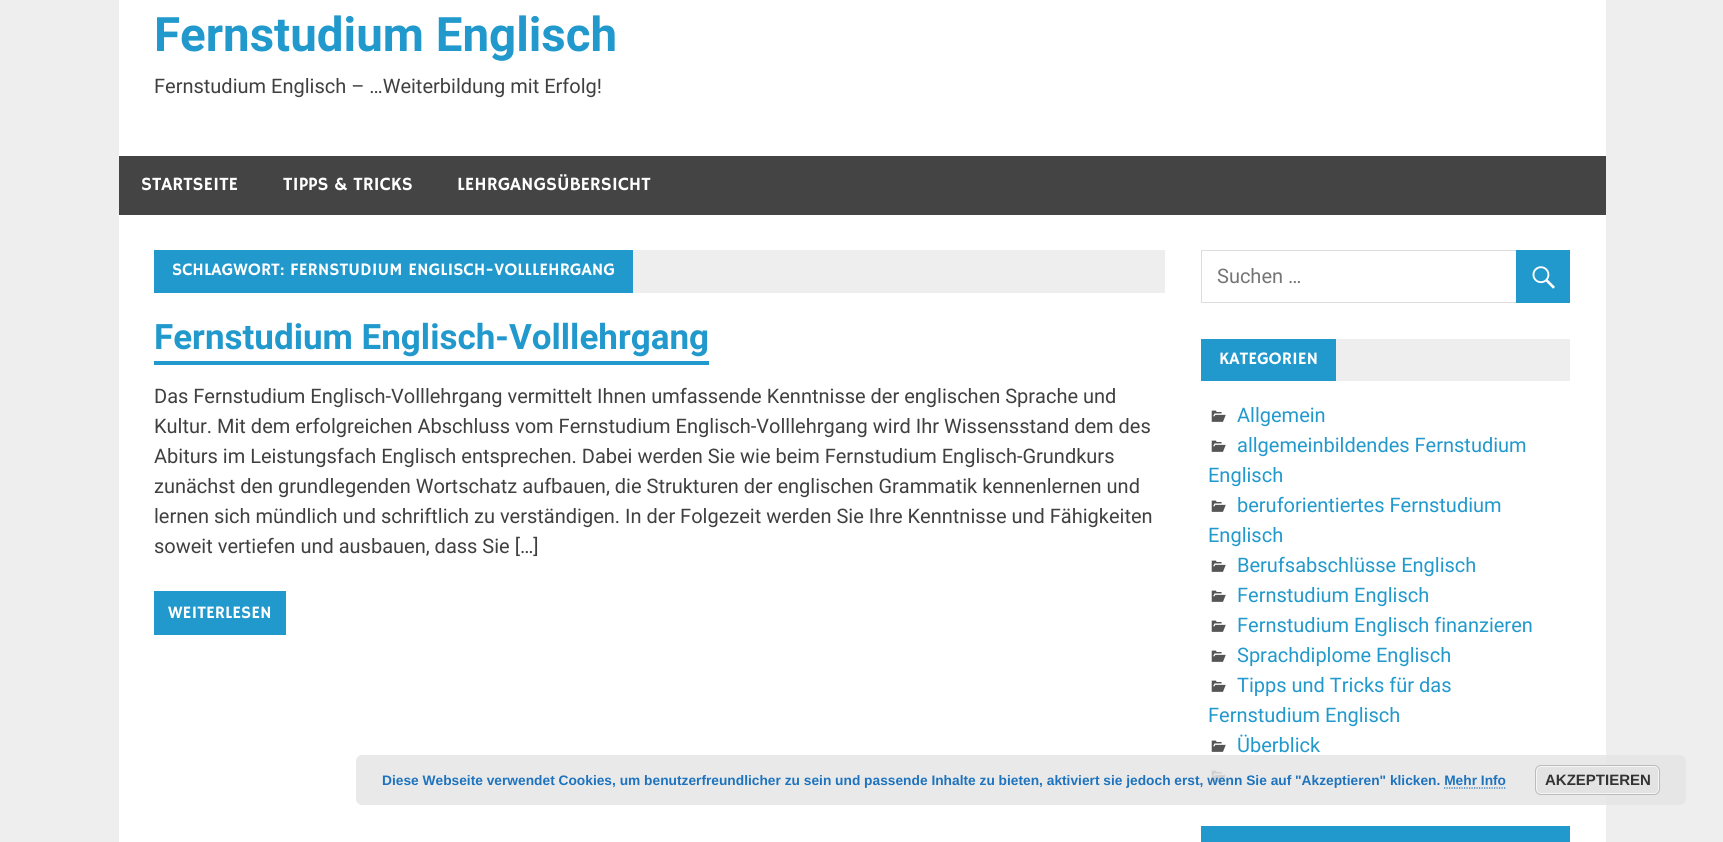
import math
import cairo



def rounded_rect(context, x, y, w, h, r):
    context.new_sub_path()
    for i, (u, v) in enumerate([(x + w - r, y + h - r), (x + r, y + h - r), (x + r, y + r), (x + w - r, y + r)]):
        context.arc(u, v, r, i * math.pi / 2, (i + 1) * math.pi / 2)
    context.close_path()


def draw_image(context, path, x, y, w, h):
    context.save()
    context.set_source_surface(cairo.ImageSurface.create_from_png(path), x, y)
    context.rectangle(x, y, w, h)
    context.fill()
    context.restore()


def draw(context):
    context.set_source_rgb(238 / 255, 238 / 255, 238 / 255)
    context.paint()
    context.set_source_rgb(1, 1, 1)
    context.rectangle(119, 0, 1487, 842)
    context.fill()
    context.set_source_rgb(68 / 255, 68 / 255, 68 / 255)
    context.rectangle(119, 156, 1487, 59)
    context.fill()
    context.set_source_rgb(238 / 255, 238 / 255, 238 / 255)
    context.rectangle(633, 250, 532, 43)
    context.fill()
    context.set_source_rgb(34 / 255, 153 / 255, 204 / 255)
    context.rectangle(154, 250, 479, 43)
    context.fill()
    context.rectangle(154, 361, 555, 4)
    context.fill()
    context.rectangle(154, 591, 132, 44)
    context.fill()
    context.rectangle(1201.5, 250.5, 368, 52)
    context.set_source_rgb(221 / 255, 221 / 255, 221 / 255)
    context.set_line_width(1)
    context.stroke()
    context.set_source_rgb(34 / 255, 153 / 255, 204 / 255)
    context.rectangle(1516, 250, 54, 53)
    context.fill()
    draw_image(context, "images/1.png", 1532, 266, 23, 23)
    context.set_source_rgb(238 / 255, 238 / 255, 238 / 255)
    context.rectangle(1336, 339, 234, 42)
    context.fill()
    context.set_source_rgb(34 / 255, 153 / 255, 204 / 255)
    context.rectangle(1201, 339, 135, 42)
    context.fill()
    draw_image(context, "images/2.png", 1211, 410, 15, 12)
    draw_image(context, "images/2.png", 1211, 440, 15, 12)
    draw_image(context, "images/2.png", 1211, 500, 15, 12)
    draw_image(context, "images/2.png", 1211, 560, 15, 12)
    draw_image(context, "images/2.png", 1211, 590, 15, 12)
    draw_image(context, "images/2.png", 1211, 620, 15, 12)
    draw_image(context, "images/2.png", 1211, 650, 15, 12)
    draw_image(context, "images/2.png", 1211, 680, 15, 12)
    draw_image(context, "images/2.png", 1211, 740, 15, 12)
    draw_image(context, "images/2.png", 1211, 770, 15, 12)
    context.rectangle(1201, 826, 369, 16)
    context.fill()
    context.set_source_rgba(229 / 255, 229 / 255, 229 / 255, 0.85)
    rounded_rect(context, 356, 755, 1330, 50, 6)
    context.fill()
    context.set_source_rgb(227 / 255, 227 / 255, 227 / 255)
    rounded_rect(context, 1535, 765, 125, 30, 6)
    context.fill()
    rounded_rect(context, 1536.5, 766.5, 122, 27, 4.5)
    context.set_source_rgb(246 / 255, 246 / 255, 246 / 255)
    context.stroke()
    rounded_rect(context, 1535.5, 765.5, 124, 29, 5.5)
    context.set_source_rgb(187 / 255, 187 / 255, 187 / 255)
    context.stroke()
    context.new_path()
    context.move_to(1444, 788)
    context.line_to(1506, 788)
    context.set_source_rgb(30 / 255, 115 / 255, 190 / 255)
    context.set_line_width(1.2)
    context.set_dash([1.25, 1.25])
    context.stroke()
    context.select_font_face("Roboto", cairo.FontSlant.NORMAL, cairo.FontWeight.BOLD)
    context.set_font_size(47.5)
    context.set_source_rgb(34 / 255, 153 / 255, 204 / 255)
    context.move_to(154, 51)
    context.show_text("Fernstudium Englisch")
    context.select_font_face("Roboto")
    context.set_font_size(20)
    context.set_source_rgb(64 / 255, 64 / 255, 64 / 255)
    context.move_to(154, 93)
    context.show_text("Fernstudium Englisch – …Weiterbildung mit Erfolg!")
    context.select_font_face("Hammersmith One")
    context.set_font_size(18.75)
    context.set_source_rgb(1, 1, 1)
    context.move_to(141, 190)
    context.show_text("STARTSEITE")
    context.move_to(283, 190)
    context.show_text("TIPPS & TRICKS")
    context.move_to(457, 190)
    context.show_text("LEHRGANGSÜBERSICHT")
    context.set_font_size(17.5)
    context.move_to(172, 275)
    context.show_text("SCHLAGWORT: FERNSTUDIUM ENGLISCH-VOLLLEHRGANG")
    context.select_font_face("Roboto", cairo.FontSlant.NORMAL, cairo.FontWeight.BOLD)
    context.set_font_size(35)
    context.set_source_rgb(34 / 255, 153 / 255, 204 / 255)
    context.move_to(154, 349)
    context.show_text("Fernstudium Englisch-Volllehrgang")
    context.select_font_face("Roboto")
    context.set_font_size(20)
    context.set_source_rgb(64 / 255, 64 / 255, 64 / 255)
    context.move_to(154, 403)
    context.show_text("Das Fernstudium Englisch-Volllehrgang vermittelt Ihnen umfassende Kenntnisse der englischen Sprache und")
    context.move_to(154, 433)
    context.show_text("Kultur. Mit dem erfolgreichen Abschluss vom Fernstudium Englisch-Volllehrgang wird Ihr Wissensstand dem des")
    context.move_to(154, 463)
    context.show_text("Abiturs im Leistungsfach Englisch entsprechen. Dabei werden Sie wie beim Fernstudium Englisch-Grundkurs")
    context.move_to(154, 493)
    context.show_text("zunächst den grundlegenden Wortschatz aufbauen, die Strukturen der englischen Grammatik kennenlernen und")
    context.move_to(154, 523)
    context.show_text("lernen sich mündlich und schriftlich zu verständigen. In der Folgezeit werden Sie Ihre Kenntnisse und Fähigkeiten")
    context.move_to(154, 553)
    context.show_text("soweit vertiefen und ausbauen, dass Sie […]")
    context.select_font_face("Hammersmith One")
    context.set_font_size(17.5)
    context.set_source_rgb(1, 1, 1)
    context.move_to(168, 618)
    context.show_text("WEITERLESEN")
    context.select_font_face("Roboto")
    context.set_font_size(20)
    context.set_source_rgb(117 / 255, 117 / 255, 117 / 255)
    context.move_to(1217, 283)
    context.show_text("Suchen …")
    context.select_font_face("Hammersmith One")
    context.set_font_size(17.5)
    context.set_source_rgb(1, 1, 1)
    context.move_to(1219, 364)
    context.show_text("KATEGORIEN")
    context.select_font_face("Roboto")
    context.set_font_size(20)
    context.set_source_rgb(34 / 255, 153 / 255, 204 / 255)
    context.move_to(1237, 422)
    context.show_text("Allgemein")
    context.move_to(1237, 452)
    context.show_text("allgemeinbildendes Fernstudium")
    context.move_to(1208, 482)
    context.show_text("Englisch")
    context.move_to(1237, 512)
    context.show_text("beruforientiertes Fernstudium")
    context.move_to(1208, 542)
    context.show_text("Englisch")
    context.move_to(1237, 572)
    context.show_text("Berufsabschlüsse Englisch")
    context.move_to(1237, 602)
    context.show_text("Fernstudium Englisch")
    context.move_to(1237, 632)
    context.show_text("Fernstudium Englisch finanzieren")
    context.move_to(1237, 662)
    context.show_text("Sprachdiplome Englisch")
    context.move_to(1237, 692)
    context.show_text("Tipps und Tricks für das")
    context.move_to(1208, 722)
    context.show_text("Fernstudium Englisch")
    context.move_to(1237, 752)
    context.show_text("Überblick")
    context.select_font_face("Liberation Sans", cairo.FontSlant.NORMAL, cairo.FontWeight.BOLD)
    context.set_font_size(13.75)
    context.set_source_rgb(30 / 255, 115 / 255, 190 / 255)
    context.move_to(382, 785)
    context.show_text("Diese Webseite verwendet Cookies, um benutzerfreundlicher zu sein und passende Inhalte zu bieten, aktiviert sie jedoch erst, wenn Sie auf \"Akzeptieren\" klicken. Mehr Info")
    context.set_font_size(15)
    context.set_source_rgb(51 / 255, 51 / 255, 51 / 255)
    context.move_to(1545, 785)
    context.show_text("AKZEPTIEREN")


surface = cairo.ImageSurface(cairo.Format.RGB24, 1723, 842)
context = cairo.Context(surface)
options = cairo.FontOptions()
options.set_hint_metrics(cairo.HintMetrics.OFF)
options.set_hint_style(cairo.HintStyle.NONE)
context.set_font_options(options)
context.set_miter_limit(4)
draw(context)
surface.write_to_png("out.png")
